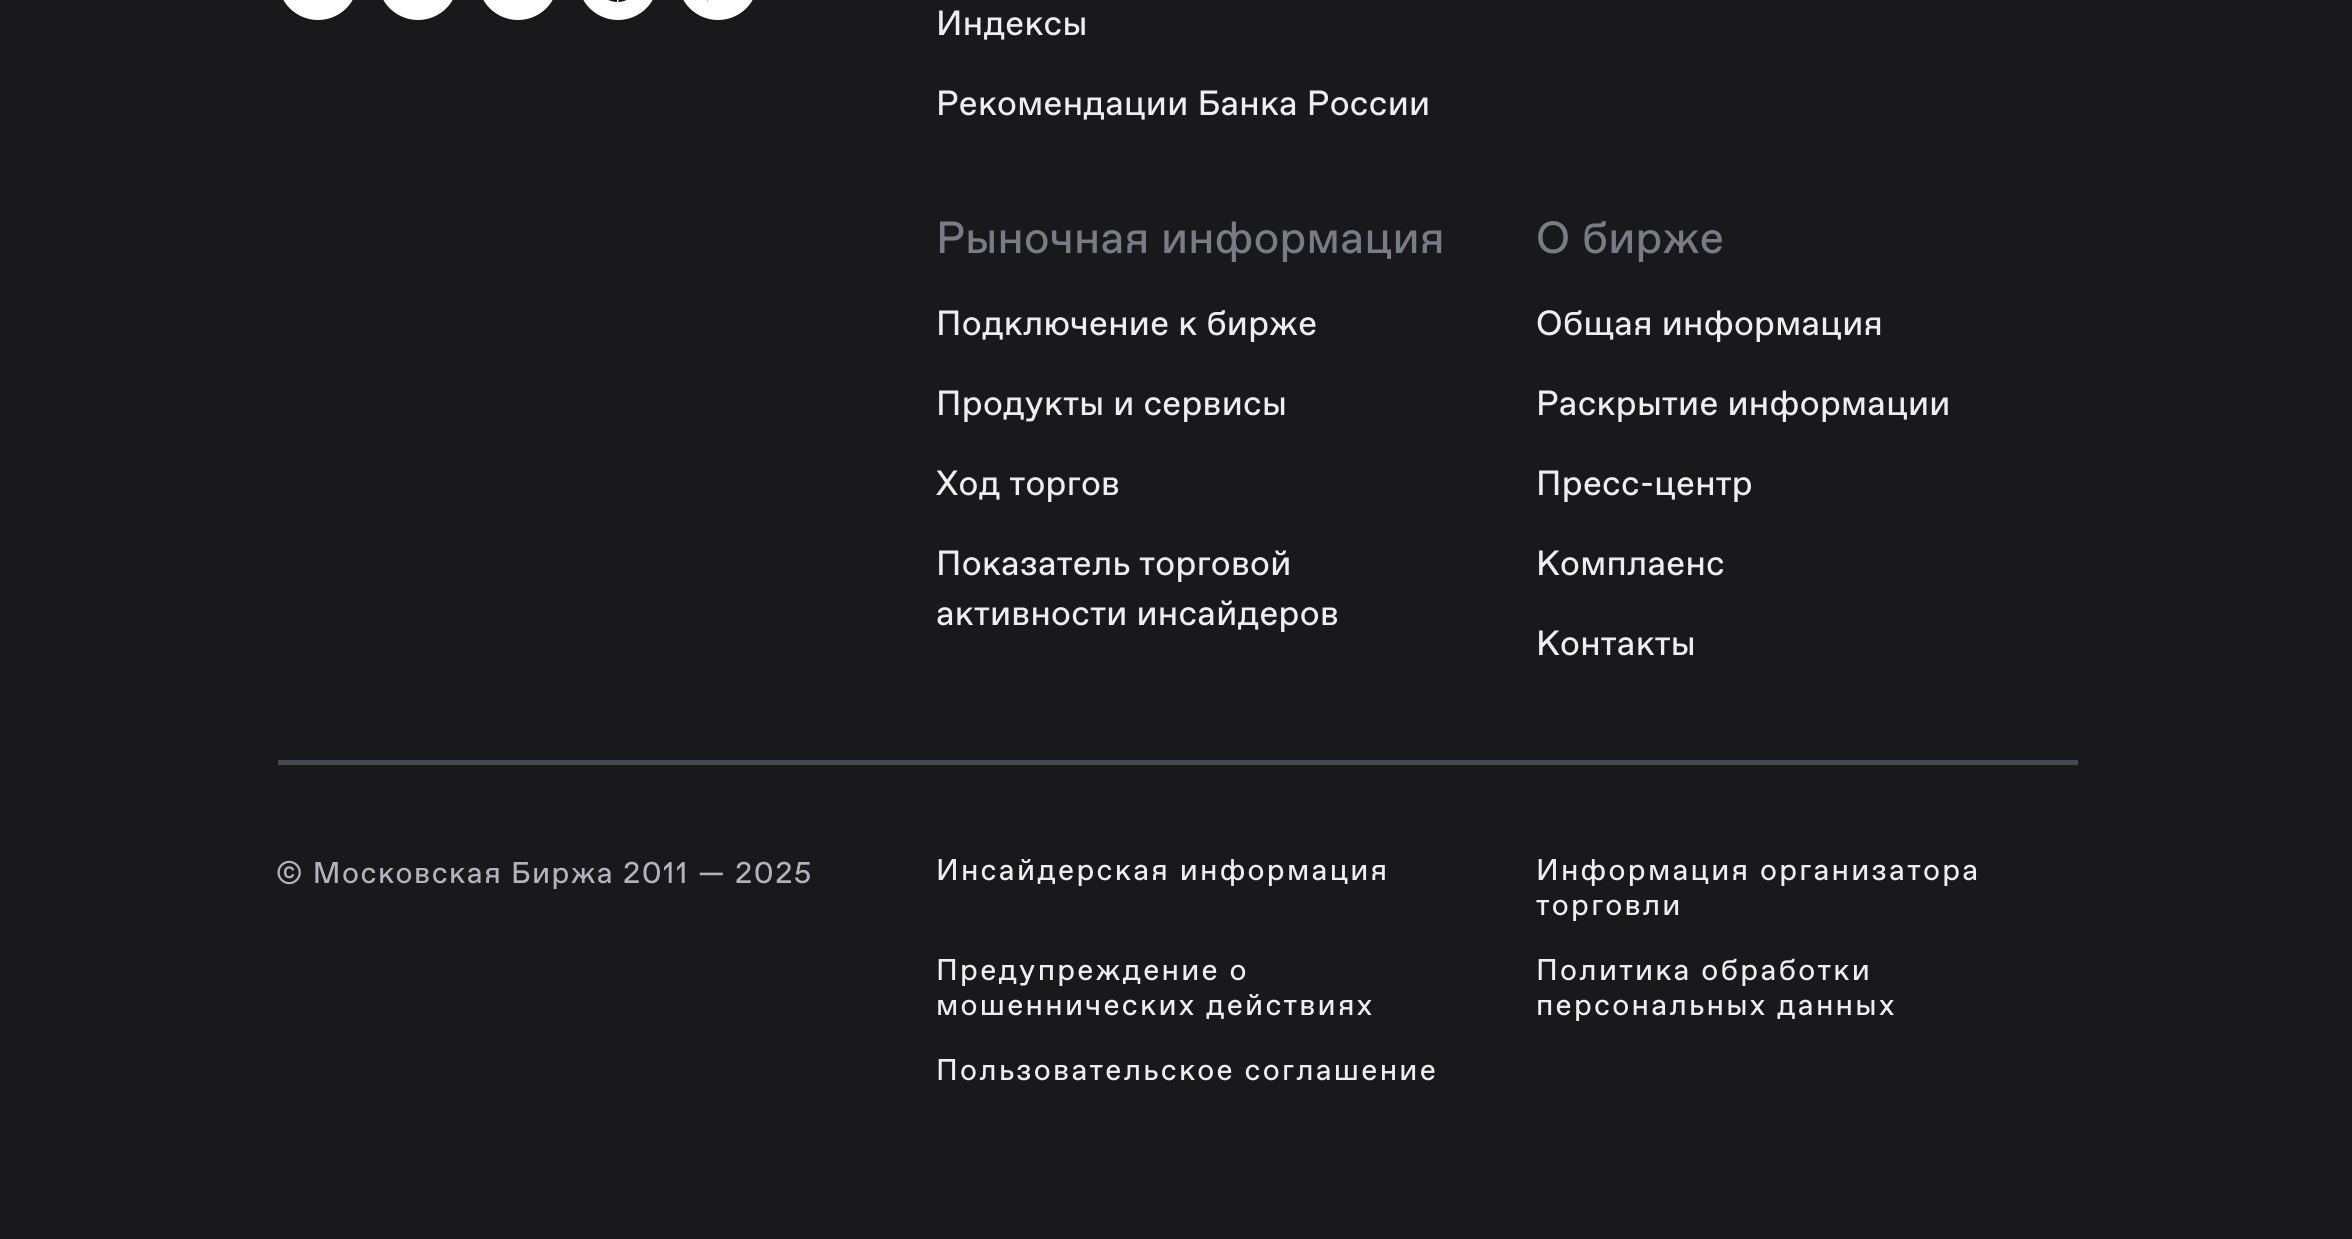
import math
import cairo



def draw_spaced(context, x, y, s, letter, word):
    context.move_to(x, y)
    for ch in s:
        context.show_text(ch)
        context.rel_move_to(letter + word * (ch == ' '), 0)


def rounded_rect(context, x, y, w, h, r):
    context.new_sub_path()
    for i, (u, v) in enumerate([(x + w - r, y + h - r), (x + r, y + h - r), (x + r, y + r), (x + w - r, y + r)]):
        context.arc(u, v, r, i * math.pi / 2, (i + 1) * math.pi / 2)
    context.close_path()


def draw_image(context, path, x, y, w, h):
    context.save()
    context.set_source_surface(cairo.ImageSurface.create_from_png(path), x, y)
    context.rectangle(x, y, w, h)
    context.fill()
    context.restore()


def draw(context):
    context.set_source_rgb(25 / 255, 25 / 255, 27 / 255)
    context.paint()
    context.set_source_rgb(1, 1, 1)
    rounded_rect(context, 278, -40, 80, 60, 40)
    context.fill()
    rounded_rect(context, 378, -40, 80, 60, 40)
    context.fill()
    rounded_rect(context, 478, -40, 80, 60, 40)
    context.fill()
    rounded_rect(context, 578, -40, 80, 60, 40)
    context.fill()
    draw_image(context, "images/1.png", 608, 0, 19, 2)
    rounded_rect(context, 678, -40, 80, 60, 40)
    context.fill()
    draw_image(context, "images/2.png", 707, 0, 1, 2)
    context.set_source_rgb(70 / 255, 72 / 255, 79 / 255)
    context.rectangle(278, 760, 1800, 5)
    context.fill()
    context.select_font_face("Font")
    context.set_font_size(35)
    context.set_source_rgb(238 / 255, 238 / 255, 240 / 255)
    draw_spaced(context, 936, 35, "Индексы", 0.3, 0)
    draw_spaced(context, 936, 115, "Рекомендации Банка России", 0.3, 0)
    context.set_font_size(45)
    context.set_source_rgb(121 / 255, 123 / 255, 134 / 255)
    draw_spaced(context, 936, 253, "Рыночная информация", 0.3, 0)
    context.set_font_size(35)
    context.set_source_rgb(238 / 255, 238 / 255, 240 / 255)
    draw_spaced(context, 936, 335, "Подключение к бирже", 0.3, 0)
    draw_spaced(context, 936, 415, "Продукты и сервисы", 0.3, 0)
    draw_spaced(context, 936, 495, "Ход торгов", 0.3, 0)
    draw_spaced(context, 936, 575, "Показатель торговой", 0.3, 0)
    draw_spaced(context, 936, 625, "активности инсайдеров", 0.3, 0)
    context.set_font_size(45)
    context.set_source_rgb(121 / 255, 123 / 255, 134 / 255)
    draw_spaced(context, 1536, 253, "О бирже", 0.3, 0)
    context.set_font_size(35)
    context.set_source_rgb(238 / 255, 238 / 255, 240 / 255)
    draw_spaced(context, 1536, 335, "Общая информация", 0.3, 0)
    draw_spaced(context, 1536, 415, "Раскрытие информации", 0.3, 0)
    draw_spaced(context, 1536, 495, "Пресс-центр", 0.3, 0)
    draw_spaced(context, 1536, 575, "Комплаенс", 0.3, 0)
    draw_spaced(context, 1536, 655, "Контакты", 0.3, 0)
    context.set_font_size(30)
    context.set_source_rgb(178 / 255, 179 / 255, 189 / 255)
    draw_spaced(context, 276, 883, "© Московская Биржа 2011 — 2025", 1.5, 0)
    context.set_source_rgb(238 / 255, 238 / 255, 240 / 255)
    draw_spaced(context, 936, 880, "Инсайдерская информация", 2.25, 0)
    draw_spaced(context, 1536, 880, "Информация организатора", 2.25, 0)
    draw_spaced(context, 1536, 915, "торговли", 2.25, 0)
    draw_spaced(context, 936, 980, "Предупреждение о", 2.25, 0)
    draw_spaced(context, 936, 1015, "мошеннических действиях", 2.25, 0)
    draw_spaced(context, 1536, 980, "Политика обработки", 2.25, 0)
    draw_spaced(context, 1536, 1015, "персональных данных", 2.25, 0)
    draw_spaced(context, 936, 1080, "Пользовательское соглашение", 2.25, 0)


surface = cairo.ImageSurface(cairo.Format.RGB24, 2352, 1239)
context = cairo.Context(surface)
options = cairo.FontOptions()
options.set_hint_metrics(cairo.HintMetrics.OFF)
options.set_hint_style(cairo.HintStyle.NONE)
context.set_font_options(options)
context.set_miter_limit(4)
draw(context)
surface.write_to_png("out.png")
